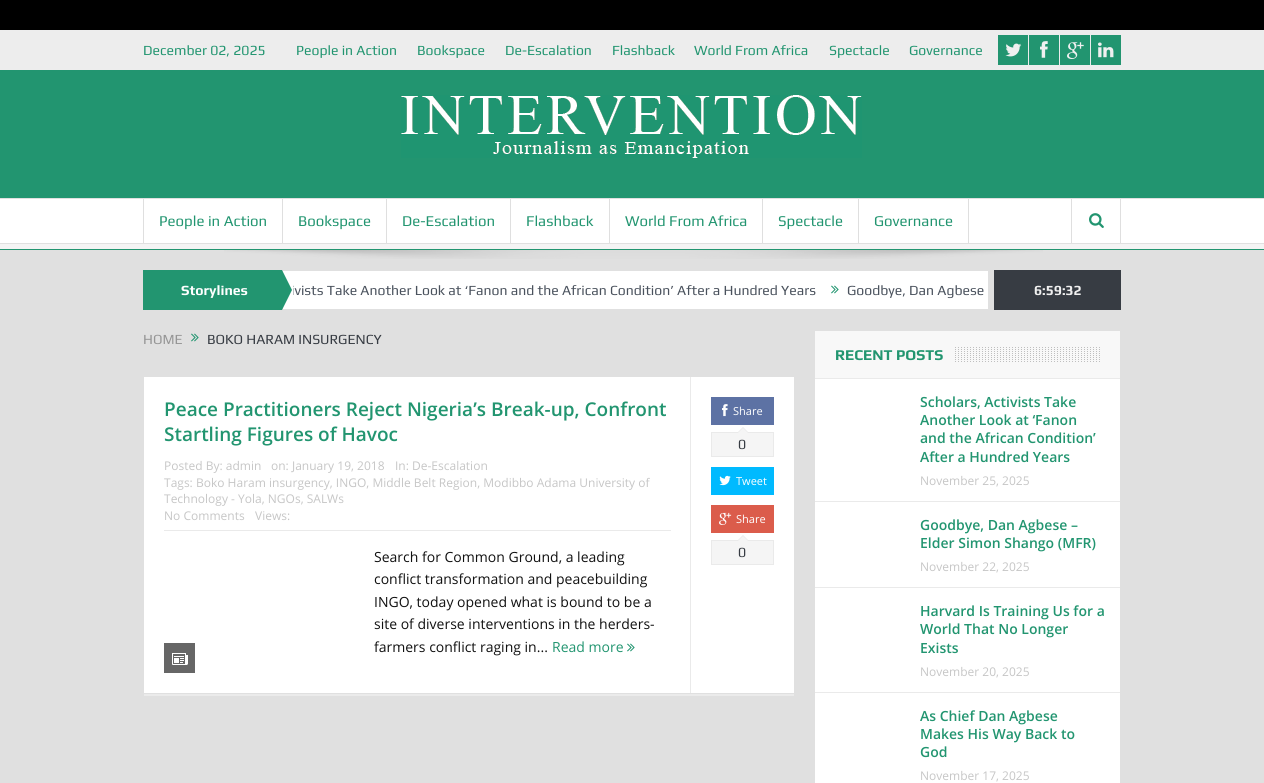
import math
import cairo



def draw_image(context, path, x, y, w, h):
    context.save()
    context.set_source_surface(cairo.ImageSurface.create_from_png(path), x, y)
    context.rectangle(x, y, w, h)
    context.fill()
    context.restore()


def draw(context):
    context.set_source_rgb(224 / 255, 224 / 255, 224 / 255)
    context.paint()
    context.set_source_rgb(0, 0, 0)
    context.rectangle(0, 0, 1264, 30)
    context.fill()
    context.set_source_rgb(237 / 255, 237 / 255, 237 / 255)
    context.rectangle(0, 30, 1264, 40)
    context.fill()
    context.set_source_rgb(34 / 255, 149 / 255, 112 / 255)
    context.rectangle(998, 35, 30, 30)
    context.fill()
    draw_image(context, "images/1.png", 1005, 43, 17, 14)
    context.rectangle(1029, 35, 30, 30)
    context.fill()
    draw_image(context, "images/2.png", 1040, 41, 8, 17)
    context.rectangle(1060, 35, 30, 30)
    context.fill()
    draw_image(context, "images/3.png", 1067, 42, 17, 17)
    context.rectangle(1091, 35, 30, 30)
    context.fill()
    draw_image(context, "images/4.png", 1098, 42, 16, 16)
    context.rectangle(0, 70, 1264, 128)
    context.fill()
    draw_image(context, "images/5.png", 401, 95, 461, 63)
    context.set_source_rgb(244 / 255, 244 / 255, 244 / 255)
    context.rectangle(0, 244, 1264, 5)
    context.fill()
    context.set_source_rgb(34 / 255, 149 / 255, 112 / 255)
    context.rectangle(0, 249, 1264, 1)
    context.fill()
    context.set_source_rgb(1, 1, 1)
    context.rectangle(0, 199, 1264, 44)
    context.fill()
    context.set_source_rgb(223 / 255, 223 / 255, 223 / 255)
    context.rectangle(143, 199, 1, 44)
    context.fill()
    context.rectangle(282, 199, 1, 44)
    context.fill()
    context.rectangle(386, 199, 1, 44)
    context.fill()
    context.rectangle(510, 199, 1, 44)
    context.fill()
    context.rectangle(609, 199, 1, 44)
    context.fill()
    context.rectangle(762, 199, 1, 44)
    context.fill()
    context.rectangle(968, 199, 1, 44)
    context.fill()
    context.rectangle(858, 199, 1, 44)
    context.fill()
    context.rectangle(1120, 199, 1, 44)
    context.fill()
    context.rectangle(1071, 199, 1, 44)
    context.fill()
    draw_image(context, "images/6.png", 1089, 213, 15, 15)
    draw_image(context, "images/7.png", 224, 250, 819, 9)
    context.set_source_rgb(34 / 255, 149 / 255, 112 / 255)
    context.rectangle(143, 270, 139, 40)
    context.fill()
    context.set_source_rgb(1, 1, 1)
    context.rectangle(283, 271, 705, 38)
    context.fill()
    context.set_source_rgb(34 / 255, 149 / 255, 112 / 255)
    context.new_path()
    context.move_to(282, 310)
    context.line_to(282, 270)
    context.line_to(292, 290)
    context.close_path()
    context.fill()
    draw_image(context, "images/8.png", 831, 285, 8, 9)
    context.set_source_rgb(55 / 255, 60 / 255, 67 / 255)
    context.rectangle(994, 270, 127, 40)
    context.fill()
    draw_image(context, "images/9.png", 191, 333, 8, 9)
    context.set_source_rgb(1, 1, 1)
    context.rectangle(144, 377, 650, 316)
    context.fill()
    context.set_source_rgb(234 / 255, 234 / 255, 234 / 255)
    context.rectangle(164, 530, 507, 1)
    context.fill()
    context.set_source_rgb(102 / 255, 102 / 255, 102 / 255)
    context.rectangle(164, 643, 31, 30)
    context.fill()
    draw_image(context, "images/10.png", 172, 653, 16, 12)
    draw_image(context, "images/8.png", 627, 643, 8, 9)
    context.set_source_rgb(234 / 255, 234 / 255, 234 / 255)
    context.rectangle(690, 377, 1, 316)
    context.fill()
    context.set_source_rgb(93 / 255, 114 / 255, 164 / 255)
    context.rectangle(711, 397, 63, 28)
    context.fill()
    draw_image(context, "images/11.png", 722, 404, 6, 13)
    context.set_source_rgb(245 / 255, 245 / 255, 245 / 255)
    context.rectangle(711.5, 432.5, 62, 24)
    context.fill_preserve()
    context.set_source_rgb(234 / 255, 234 / 255, 234 / 255)
    context.set_line_width(1)
    context.stroke()
    context.new_path()
    context.move_to(749, 433)
    context.line_to(737, 433)
    context.line_to(743, 427)
    context.close_path()
    context.fill()
    context.set_source_rgb(245 / 255, 245 / 255, 245 / 255)
    context.new_path()
    context.move_to(748, 433)
    context.line_to(738, 433)
    context.line_to(743, 428)
    context.close_path()
    context.fill()
    context.set_source_rgb(0, 186 / 255, 1)
    context.rectangle(711, 467, 63, 28)
    context.fill()
    draw_image(context, "images/12.png", 719, 475, 12, 11)
    context.set_source_rgb(219 / 255, 92 / 255, 75 / 255)
    context.rectangle(711, 505, 63, 28)
    context.fill()
    draw_image(context, "images/13.png", 719, 512, 13, 13)
    context.set_source_rgb(245 / 255, 245 / 255, 245 / 255)
    context.rectangle(711.5, 540.5, 62, 24)
    context.fill_preserve()
    context.set_source_rgb(234 / 255, 234 / 255, 234 / 255)
    context.stroke()
    context.new_path()
    context.move_to(749, 541)
    context.line_to(737, 541)
    context.line_to(743, 535)
    context.close_path()
    context.fill()
    context.set_source_rgb(245 / 255, 245 / 255, 245 / 255)
    context.new_path()
    context.move_to(748, 541)
    context.line_to(738, 541)
    context.line_to(743, 536)
    context.close_path()
    context.fill()
    context.set_source_rgb(235 / 255, 235 / 255, 235 / 255)
    context.rectangle(144, 694, 650, 2)
    context.fill()
    context.set_source_rgb(1, 1, 1)
    context.rectangle(815, 379, 305, 404)
    context.fill()
    context.set_source_rgb(248 / 255, 248 / 255, 248 / 255)
    context.rectangle(815, 331, 305, 47)
    context.fill()
    context.set_source_rgb(234 / 255, 234 / 255, 234 / 255)
    context.rectangle(815, 378, 305, 1)
    context.fill()
    draw_image(context, "images/14.png", 955, 347, 145, 15)
    context.rectangle(815, 501, 305, 1)
    context.fill()
    context.rectangle(815, 587, 305, 1)
    context.fill()
    context.rectangle(815, 692, 305, 1)
    context.fill()
    context.select_font_face("Play")
    context.set_font_size(14)
    context.set_source_rgb(34 / 255, 149 / 255, 112 / 255)
    context.move_to(143, 55)
    context.show_text("December 02, 2025")
    context.move_to(296, 55)
    context.show_text("People in Action")
    context.move_to(417, 55)
    context.show_text("Bookspace")
    context.move_to(505, 55)
    context.show_text("De-Escalation")
    context.move_to(612, 55)
    context.show_text("Flashback")
    context.move_to(694, 55)
    context.show_text("World From Africa")
    context.move_to(829, 55)
    context.show_text("Spectacle")
    context.move_to(909, 55)
    context.show_text("Governance")
    context.set_font_size(15)
    context.move_to(159, 226)
    context.show_text("People in Action")
    context.move_to(298, 226)
    context.show_text("Bookspace")
    context.move_to(402, 226)
    context.show_text("De-Escalation")
    context.move_to(526, 226)
    context.show_text("Flashback")
    context.move_to(625, 226)
    context.show_text("World From Africa")
    context.move_to(778, 226)
    context.show_text("Spectacle")
    context.move_to(874, 226)
    context.show_text("Governance")
    context.select_font_face("Play", cairo.FontSlant.NORMAL, cairo.FontWeight.BOLD)
    context.set_font_size(14)
    context.set_source_rgb(1, 1, 1)
    context.move_to(181, 295)
    context.show_text("Storylines")
    context.save()
    context.rectangle(293, 271, 693, 38)
    context.clip()
    context.select_font_face("Play")
    context.set_source_rgb(74 / 255, 82 / 255, 93 / 255)
    context.move_to(291, 295)
    context.show_text("ivists Take Another Look at ‘Fanon and the African Condition’ After a Hundred Years")
    context.restore()
    context.select_font_face("Play")
    context.set_source_rgb(74 / 255, 82 / 255, 93 / 255)
    context.move_to(847, 295)
    context.show_text("Goodbye, Dan Agbese")
    context.select_font_face("Play", cairo.FontSlant.NORMAL, cairo.FontWeight.BOLD)
    context.set_source_rgb(240 / 255, 240 / 255, 240 / 255)
    context.move_to(1034, 295)
    context.show_text("6:59:32")
    context.select_font_face("Play")
    context.set_source_rgb(149 / 255, 149 / 255, 149 / 255)
    context.move_to(143, 344)
    context.show_text("HOME")
    context.set_source_rgb(55 / 255, 60 / 255, 67 / 255)
    context.move_to(207, 344)
    context.show_text("BOKO HARAM INSURGENCY")
    context.select_font_face("Open Sans SemiBold")
    context.set_font_size(19)
    context.set_source_rgb(34 / 255, 149 / 255, 112 / 255)
    context.move_to(164, 416)
    context.show_text("Peace Practitioners Reject Nigeria’s Break-up, Confront")
    context.move_to(164, 441)
    context.show_text("Startling Figures of Havoc")
    context.select_font_face("Open Sans")
    context.set_font_size(12)
    context.set_source_rgb(198 / 255, 198 / 255, 198 / 255)
    context.move_to(164, 470)
    context.show_text("Posted By: admin")
    context.move_to(271, 470)
    context.show_text("on: January 19, 2018")
    context.move_to(395, 470)
    context.show_text("In: De-Escalation")
    context.move_to(164, 487)
    context.show_text("Tags: Boko Haram insurgency, INGO, Middle Belt Region, Modibbo Adama University of")
    context.move_to(164, 503)
    context.show_text("Technology - Yola, NGOs, SALWs")
    context.move_to(164, 520)
    context.show_text("No Comments")
    context.move_to(255, 520)
    context.show_text("Views:")
    context.set_font_size(14)
    context.set_source_rgb(17 / 255, 17 / 255, 17 / 255)
    context.move_to(374, 562)
    context.show_text("Search for Common Ground, a leading")
    context.move_to(374, 584)
    context.show_text("conflict transformation and peacebuilding")
    context.move_to(374, 607)
    context.show_text("INGO, today opened what is bound to be a")
    context.move_to(374, 629)
    context.show_text("site of diverse interventions in the herders-")
    context.move_to(374, 652)
    context.show_text("farmers conflict raging in...")
    context.set_source_rgb(34 / 255, 149 / 255, 112 / 255)
    context.move_to(552, 652)
    context.show_text("Read more")
    context.set_font_size(11)
    context.set_source_rgb(1, 1, 1)
    context.move_to(733, 415)
    context.show_text("Share")
    context.select_font_face("Play")
    context.set_font_size(14)
    context.set_source_rgb(55 / 255, 60 / 255, 67 / 255)
    context.move_to(738, 449)
    context.show_text("0")
    context.select_font_face("Open Sans")
    context.set_font_size(11)
    context.set_source_rgb(1, 1, 1)
    context.move_to(736, 485)
    context.show_text("Tweet")
    context.move_to(736, 523)
    context.show_text("Share")
    context.select_font_face("Play")
    context.set_font_size(14)
    context.set_source_rgb(55 / 255, 60 / 255, 67 / 255)
    context.move_to(738, 557)
    context.show_text("0")
    context.select_font_face("Play", cairo.FontSlant.NORMAL, cairo.FontWeight.BOLD)
    context.set_font_size(15)
    context.set_source_rgb(34 / 255, 149 / 255, 112 / 255)
    context.move_to(835, 360)
    context.show_text("RECENT POSTS")
    context.select_font_face("Open Sans SemiBold")
    context.set_font_size(14)
    context.move_to(920, 407)
    context.show_text("Scholars, Activists Take")
    context.move_to(920, 425)
    context.show_text("Another Look at ‘Fanon")
    context.move_to(920, 443)
    context.show_text("and the African Condition’")
    context.move_to(920, 462)
    context.show_text("After a Hundred Years")
    context.select_font_face("Open Sans")
    context.set_font_size(12)
    context.set_source_rgb(198 / 255, 198 / 255, 198 / 255)
    context.move_to(920, 485)
    context.show_text("November 25, 2025")
    context.select_font_face("Open Sans SemiBold")
    context.set_font_size(14)
    context.set_source_rgb(34 / 255, 149 / 255, 112 / 255)
    context.move_to(920, 530)
    context.show_text("Goodbye, Dan Agbese –")
    context.move_to(920, 548)
    context.show_text("Elder Simon Shango (MFR)")
    context.select_font_face("Open Sans")
    context.set_font_size(12)
    context.set_source_rgb(198 / 255, 198 / 255, 198 / 255)
    context.move_to(920, 571)
    context.show_text("November 22, 2025")
    context.select_font_face("Open Sans SemiBold")
    context.set_font_size(14)
    context.set_source_rgb(34 / 255, 149 / 255, 112 / 255)
    context.move_to(920, 616)
    context.show_text("Harvard Is Training Us for a")
    context.move_to(920, 634)
    context.show_text("World That No Longer")
    context.move_to(920, 653)
    context.show_text("Exists")
    context.select_font_face("Open Sans")
    context.set_font_size(12)
    context.set_source_rgb(198 / 255, 198 / 255, 198 / 255)
    context.move_to(920, 676)
    context.show_text("November 20, 2025")
    context.select_font_face("Open Sans SemiBold")
    context.set_font_size(14)
    context.set_source_rgb(34 / 255, 149 / 255, 112 / 255)
    context.move_to(920, 721)
    context.show_text("As Chief Dan Agbese")
    context.move_to(920, 739)
    context.show_text("Makes His Way Back to")
    context.move_to(920, 757)
    context.show_text("God")
    context.select_font_face("Open Sans")
    context.set_font_size(12)
    context.set_source_rgb(198 / 255, 198 / 255, 198 / 255)
    context.move_to(920, 780)
    context.show_text("November 17, 2025")


surface = cairo.ImageSurface(cairo.Format.RGB24, 1264, 783)
context = cairo.Context(surface)
options = cairo.FontOptions()
options.set_hint_metrics(cairo.HintMetrics.OFF)
options.set_hint_style(cairo.HintStyle.NONE)
context.set_font_options(options)
context.set_miter_limit(4)
draw(context)
surface.write_to_png("out.png")
